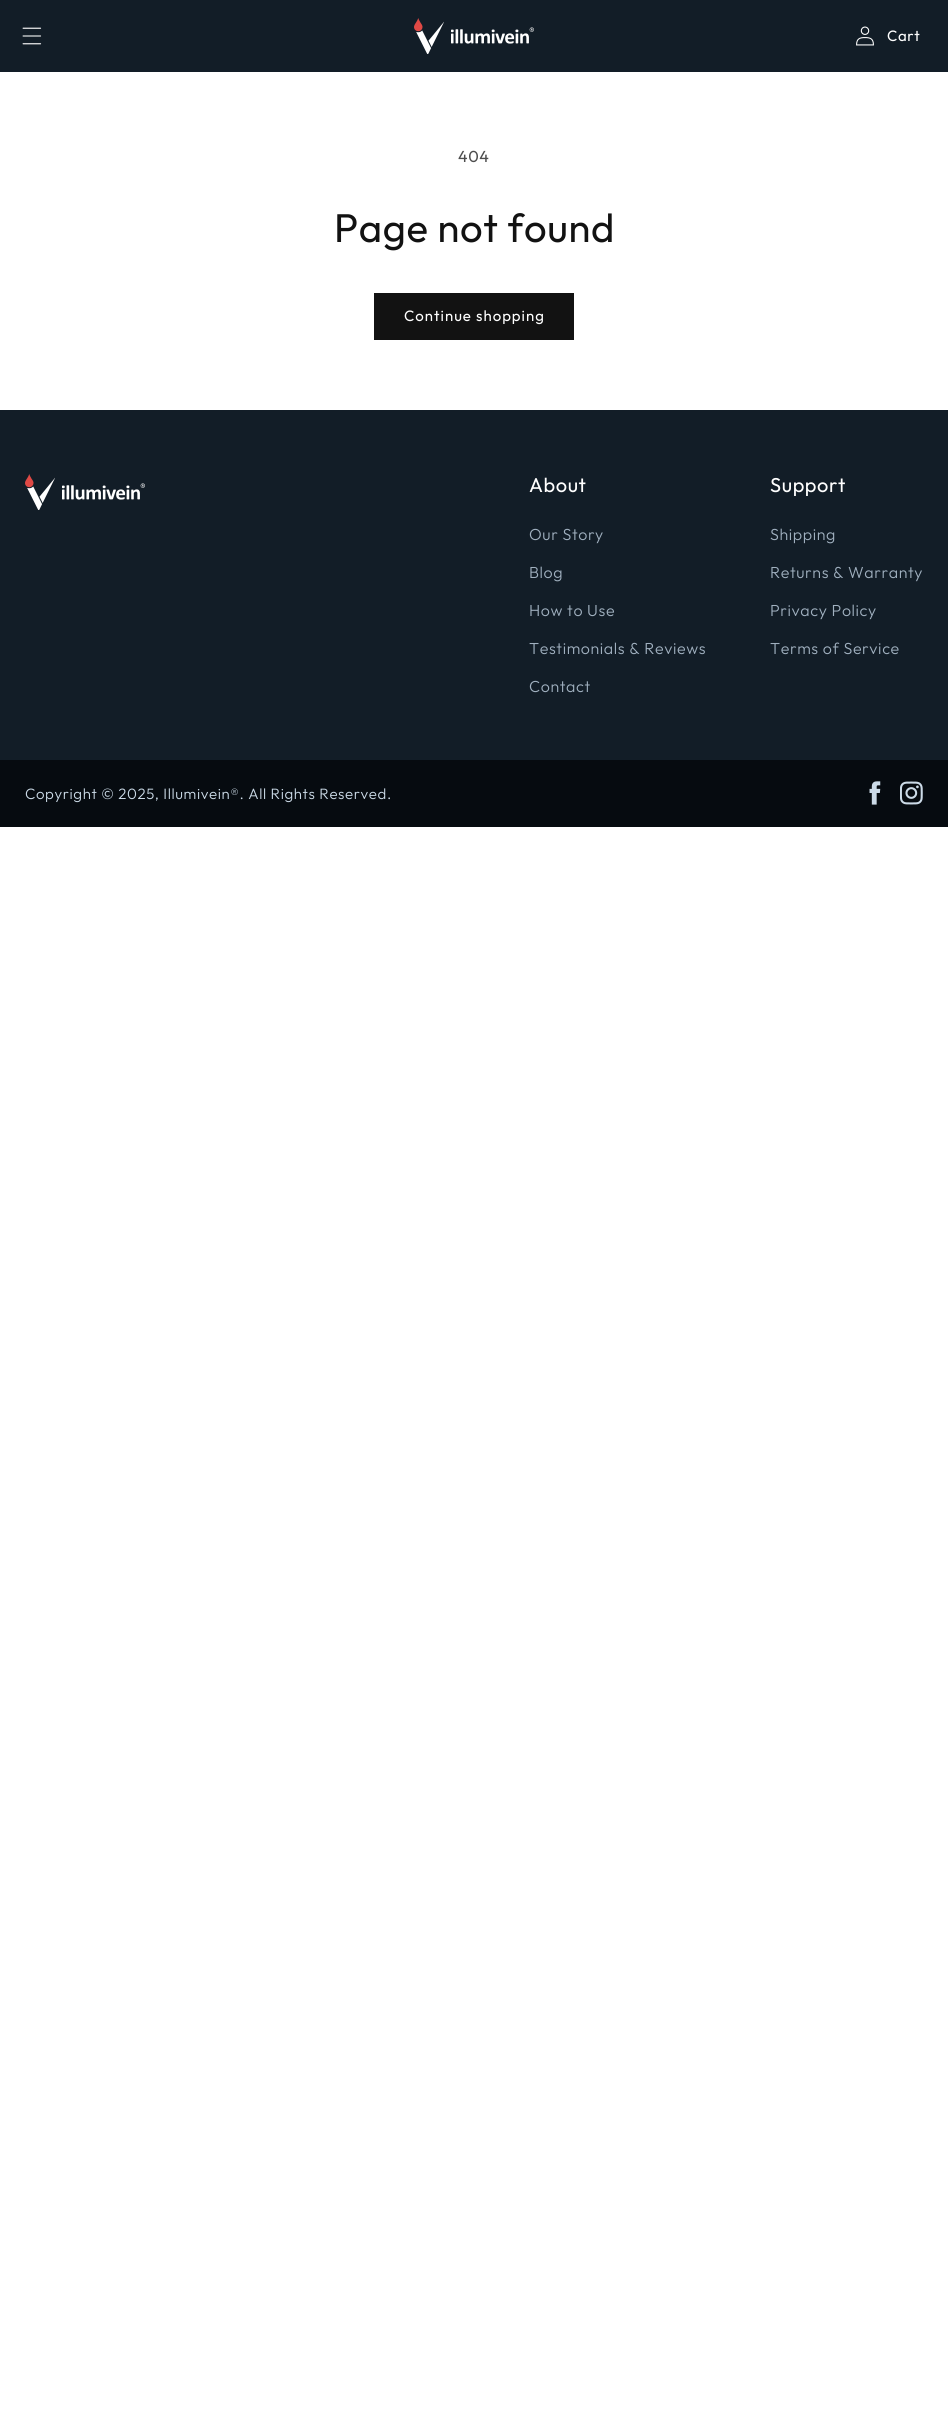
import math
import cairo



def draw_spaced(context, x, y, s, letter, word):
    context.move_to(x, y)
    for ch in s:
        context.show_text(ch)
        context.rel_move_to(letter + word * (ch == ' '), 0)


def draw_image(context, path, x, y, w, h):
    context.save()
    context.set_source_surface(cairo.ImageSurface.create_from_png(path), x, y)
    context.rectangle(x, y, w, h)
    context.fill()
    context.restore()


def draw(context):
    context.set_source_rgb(1, 1, 1)
    context.paint()
    context.set_source_rgb(18 / 255, 29 / 255, 39 / 255)
    context.rectangle(0, 0, 948, 72)
    context.fill()
    draw_image(context, "images/1.png", 22, 27, 20, 18)
    draw_image(context, "images/2.png", 414, 18, 120, 36)
    draw_image(context, "images/3.png", 856, 26, 18, 20)
    context.set_source_rgb(18 / 255, 18 / 255, 18 / 255)
    context.rectangle(374, 293, 200, 47)
    context.fill()
    context.set_source_rgb(18 / 255, 29 / 255, 39 / 255)
    context.rectangle(0, 410, 948, 350)
    context.fill()
    draw_image(context, "images/2.png", 25, 474, 120, 36)
    context.set_source_rgb(6 / 255, 11 / 255, 16 / 255)
    context.rectangle(0, 760, 948, 67)
    context.fill()
    draw_image(context, "images/4.png", 869, 781, 12, 24)
    draw_image(context, "images/5.png", 900, 781, 23, 24)
    context.select_font_face("Outfit")
    context.set_font_size(15)
    context.set_source_rgb(1, 1, 1)
    draw_spaced(context, 887, 41, "Cart", 0.6, 0)
    context.set_font_size(16)
    context.set_source_rgb(77 / 255, 77 / 255, 77 / 255)
    draw_spaced(context, 458, 162, "404", 0.6, 0)
    context.set_font_size(40)
    context.set_source_rgb(18 / 255, 18 / 255, 18 / 255)
    draw_spaced(context, 334, 242, "Page not found", 0.6, 0)
    context.set_font_size(15)
    context.set_source_rgb(1, 1, 1)
    draw_spaced(context, 404, 321, "Continue shopping", 1, 0)
    context.set_font_size(20)
    draw_spaced(context, 529, 492, "About", 0.6, 0)
    context.select_font_face("Outfit Light")
    context.set_font_size(16)
    context.set_source_rgb(160 / 255, 176 / 255, 191 / 255)
    draw_spaced(context, 529, 540, "Our Story", 0.6, 0)
    draw_spaced(context, 529, 578, "Blog", 0.6, 0)
    draw_spaced(context, 529, 616, "How to Use", 0.6, 0)
    draw_spaced(context, 529, 654, "Testimonials & Reviews", 0.6, 0)
    draw_spaced(context, 529, 692, "Contact", 0.6, 0)
    context.select_font_face("Outfit")
    context.set_font_size(20)
    context.set_source_rgb(1, 1, 1)
    draw_spaced(context, 770, 492, "Support", 0.6, 0)
    context.select_font_face("Outfit Light")
    context.set_font_size(16)
    context.set_source_rgb(160 / 255, 176 / 255, 191 / 255)
    draw_spaced(context, 770, 540, "Shipping", 0.6, 0)
    draw_spaced(context, 770, 578, "Returns & Warranty", 0.6, 0)
    draw_spaced(context, 770, 616, "Privacy Policy", 0.6, 0)
    draw_spaced(context, 770, 654, "Terms of Service", 0.6, 0)
    context.set_font_size(15)
    context.set_source_rgb(204 / 255, 219 / 255, 232 / 255)
    draw_spaced(context, 25, 799, "Copyright © 2025, Illumivein®. All Rights Reserved.", 0.6, 0)


surface = cairo.ImageSurface(cairo.Format.RGB24, 948, 2419)
context = cairo.Context(surface)
options = cairo.FontOptions()
options.set_hint_metrics(cairo.HintMetrics.OFF)
options.set_hint_style(cairo.HintStyle.NONE)
context.set_font_options(options)
context.set_miter_limit(4)
draw(context)
surface.write_to_png("out.png")
